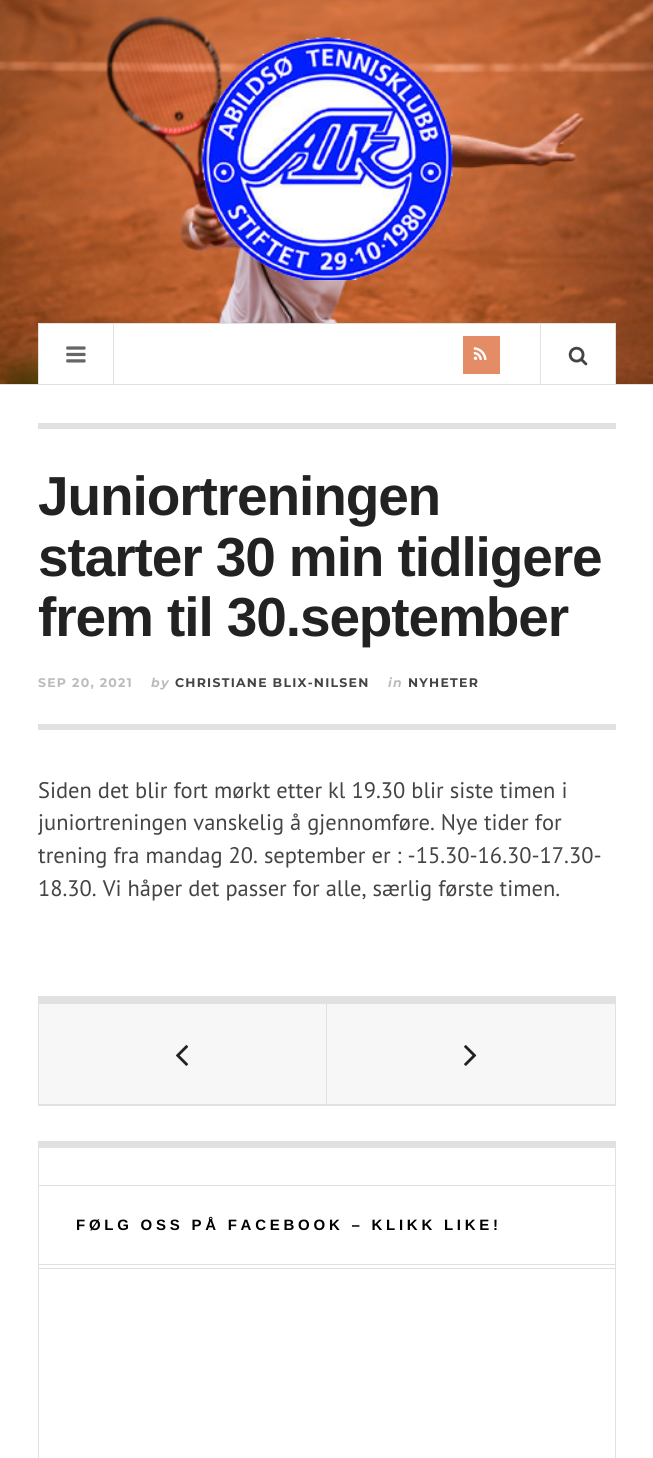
import math
import cairo



def draw_spaced(context, x, y, s, letter, word):
    context.move_to(x, y)
    for ch in s:
        context.show_text(ch)
        context.rel_move_to(letter + word * (ch == ' '), 0)


def draw_image(context, path, x, y, w, h):
    context.save()
    context.set_source_surface(cairo.ImageSurface.create_from_png(path), x, y)
    context.rectangle(x, y, w, h)
    context.fill()
    context.restore()


def draw(context):
    context.set_source_rgb(1, 1, 1)
    context.paint()
    draw_image(context, "images/1.png", 0, 0, 653, 384)
    context.set_source_rgb(225 / 255, 225 / 255, 225 / 255)
    context.rectangle(0, 384, 653, 1)
    context.fill()
    draw_image(context, "images/2.png", 202, 37, 251, 243)
    context.set_source_rgb(1, 1, 1)
    context.rectangle(38.5, 323.5, 577, 61)
    context.fill_preserve()
    context.set_source_rgb(225 / 255, 225 / 255, 225 / 255)
    context.set_line_width(1)
    context.stroke()
    context.rectangle(113, 324, 1, 60)
    context.fill()
    draw_image(context, "images/3.png", 66, 346, 20, 17)
    context.set_source_rgb(227 / 255, 140 / 255, 101 / 255)
    context.rectangle(463, 336, 37, 38)
    context.fill()
    draw_image(context, "images/4.png", 473, 347, 14, 13)
    context.set_source_rgb(225 / 255, 225 / 255, 225 / 255)
    context.rectangle(540, 324, 1, 60)
    context.fill()
    draw_image(context, "images/5.png", 568, 346, 20, 20)
    context.rectangle(38, 423, 578, 6)
    context.fill()
    context.rectangle(38, 724, 578, 6)
    context.fill()
    context.rectangle(38, 996, 578, 7)
    context.fill()
    context.rectangle(615, 996, 1, 110)
    context.fill()
    context.rectangle(38, 1105, 578, 1)
    context.fill()
    context.rectangle(38, 996, 1, 110)
    context.fill()
    context.rectangle(39, 1104, 576, 1)
    context.fill()
    context.rectangle(39, 1003, 576, 1)
    context.fill()
    context.set_source_rgb(247 / 255, 247 / 255, 247 / 255)
    context.rectangle(39, 1004, 576, 100)
    context.fill()
    context.set_source_rgb(225 / 255, 225 / 255, 225 / 255)
    context.rectangle(326, 1004, 1, 100)
    context.fill()
    draw_image(context, "images/6.png", 176, 1045, 13, 21)
    draw_image(context, "images/7.png", 464, 1045, 13, 21)
    context.rectangle(38, 1141, 578, 7)
    context.fill()
    context.rectangle(615, 1141, 1, 317)
    context.fill()
    context.rectangle(38, 1141, 1, 317)
    context.fill()
    context.rectangle(39, 1185, 576, 1)
    context.fill()
    context.rectangle(39, 1264, 576, 1)
    context.fill()
    context.rectangle(39, 1268, 576, 1)
    context.fill()
    context.select_font_face("Liberation Sans", cairo.FontSlant.NORMAL, cairo.FontWeight.BOLD)
    context.set_font_size(55)
    context.set_source_rgb(34 / 255, 34 / 255, 34 / 255)
    draw_spaced(context, 38, 515, "Juniortreningen", -1.1, 0)
    draw_spaced(context, 38, 576, "starter 30 min tidligere", -1.1, 0)
    draw_spaced(context, 38, 636, "frem til 30.september", -1.1, 0)
    context.select_font_face("Montserrat", cairo.FontSlant.NORMAL, cairo.FontWeight.BOLD)
    context.set_font_size(12.5)
    context.set_source_rgb(187 / 255, 187 / 255, 187 / 255)
    draw_spaced(context, 38, 687, "SEP 20, 2021", 1.25, 0)
    context.select_font_face("Montserrat", cairo.FontSlant.ITALIC, cairo.FontWeight.BOLD)
    draw_spaced(context, 151, 687, "by", 1.25, 0)
    context.select_font_face("Montserrat", cairo.FontSlant.NORMAL, cairo.FontWeight.BOLD)
    context.set_source_rgb(68 / 255, 68 / 255, 68 / 255)
    draw_spaced(context, 175, 687, "CHRISTIANE BLIX-NILSEN", 1.25, 0)
    context.select_font_face("Montserrat", cairo.FontSlant.ITALIC, cairo.FontWeight.BOLD)
    context.set_source_rgb(187 / 255, 187 / 255, 187 / 255)
    draw_spaced(context, 388, 687, "in", 1.25, 0)
    context.select_font_face("Montserrat", cairo.FontSlant.NORMAL, cairo.FontWeight.BOLD)
    context.set_source_rgb(68 / 255, 68 / 255, 68 / 255)
    draw_spaced(context, 408, 687, "NYHETER", 1.25, 0)
    context.select_font_face("PT Sans")
    context.set_font_size(22.5)
    context.move_to(38, 798)
    context.show_text("Siden det blir fort mørkt etter kl 19.30 blir siste timen i")
    context.move_to(38, 830)
    context.show_text("juniortreningen vanskelig å gjennomføre. Nye tider for")
    context.move_to(38, 863)
    context.show_text("trening fra mandag 20. september er : -15.30-16.30-17.30-")
    context.move_to(38, 896)
    context.show_text("18.30. Vi håper det passer for alle, særlig første timen.")
    context.select_font_face("Liberation Sans", cairo.FontSlant.NORMAL, cairo.FontWeight.BOLD)
    context.set_font_size(15)
    context.set_source_rgb(0, 0, 0)
    draw_spaced(context, 76, 1230, "FØLG OSS PÅ FACEBOOK – KLIKK LIKE!", 3.75, 0)


surface = cairo.ImageSurface(cairo.Format.RGB24, 653, 1458)
context = cairo.Context(surface)
options = cairo.FontOptions()
options.set_hint_metrics(cairo.HintMetrics.OFF)
options.set_hint_style(cairo.HintStyle.NONE)
context.set_font_options(options)
context.set_miter_limit(4)
draw(context)
surface.write_to_png("out.png")
